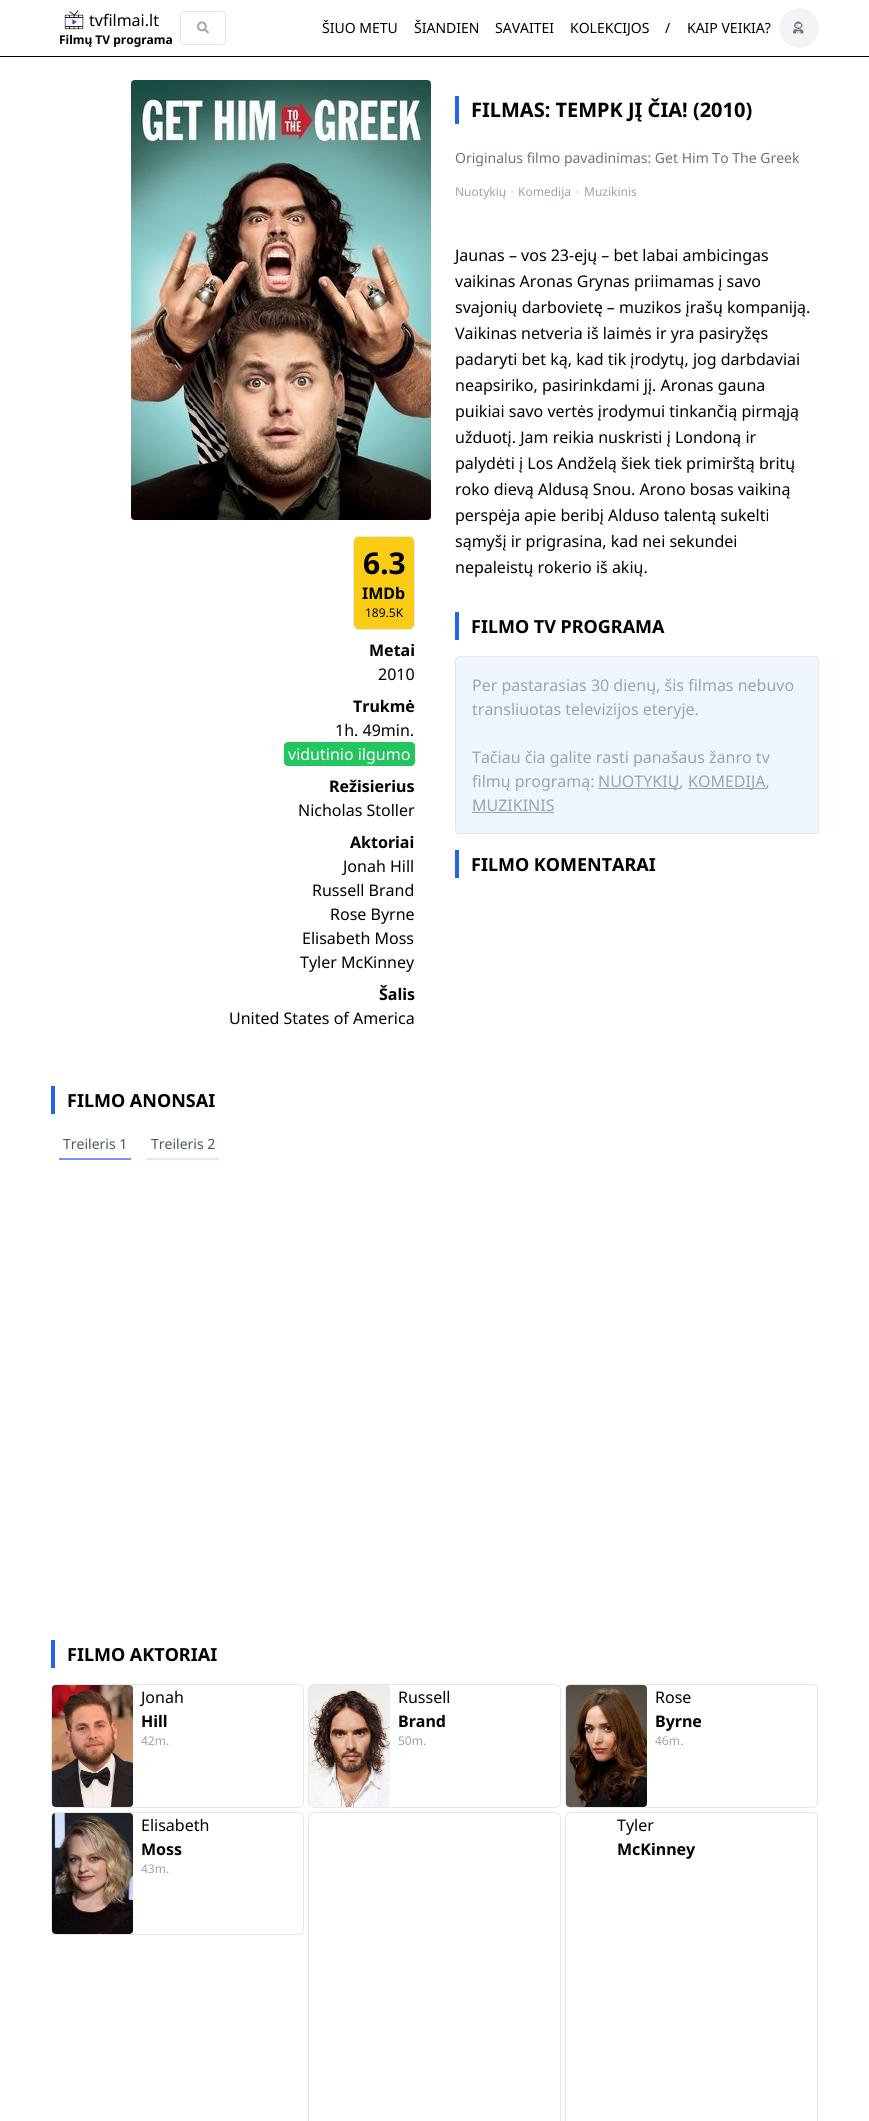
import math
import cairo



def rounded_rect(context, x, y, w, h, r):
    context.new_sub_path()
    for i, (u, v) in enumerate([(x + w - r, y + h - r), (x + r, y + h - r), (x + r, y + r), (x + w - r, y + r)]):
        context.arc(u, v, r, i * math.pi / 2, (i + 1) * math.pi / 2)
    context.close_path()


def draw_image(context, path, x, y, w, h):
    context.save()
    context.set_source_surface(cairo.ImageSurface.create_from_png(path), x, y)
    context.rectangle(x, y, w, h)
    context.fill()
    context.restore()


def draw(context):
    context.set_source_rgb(1, 1, 1)
    context.paint()
    context.set_source_rgb(0, 0, 0)
    context.rectangle(0, 56, 869, 1)
    context.fill()
    draw_image(context, "images/1.png", 64, 10, 20, 20)
    rounded_rect(context, 180.5, 11.5, 45, 33, 3.5)
    context.set_source_rgb(229 / 255, 231 / 255, 235 / 255)
    context.set_line_width(1)
    context.stroke()
    draw_image(context, "images/2.png", 197, 21, 12, 13)
    context.set_source_rgb(243 / 255, 244 / 255, 246 / 255)
    context.arc(799, 28, 20, 0, 2 * math.pi)
    context.fill()
    draw_image(context, "images/3.png", 793, 21, 11, 13)
    context.set_source_rgb(37 / 255, 99 / 255, 235 / 255)
    context.rectangle(455, 96, 4, 28)
    context.fill()
    draw_image(context, "images/4.png", 131, 80, 300, 440)
    context.set_source_rgb(250 / 255, 204 / 255, 21 / 255)
    rounded_rect(context, 353.5, 536.5, 61, 93, 5.5)
    context.fill_preserve()
    context.set_source_rgb(229 / 255, 231 / 255, 235 / 255)
    context.stroke()
    context.set_source_rgb(34 / 255, 197 / 255, 94 / 255)
    rounded_rect(context, 284, 742, 131, 24, 4)
    context.fill()
    context.set_source_rgb(37 / 255, 99 / 255, 235 / 255)
    context.rectangle(455, 612, 4, 28)
    context.fill()
    context.set_source_rgb(239 / 255, 246 / 255, 1)
    rounded_rect(context, 455.5, 656.5, 363, 177, 3.5)
    context.fill_preserve()
    context.set_source_rgb(229 / 255, 231 / 255, 235 / 255)
    context.stroke()
    context.set_source_rgb(156 / 255, 163 / 255, 175 / 255)
    context.rectangle(598, 788, 82, 1)
    context.fill()
    context.rectangle(688, 788, 78, 1)
    context.fill()
    context.rectangle(472, 812, 82, 1)
    context.fill()
    context.set_source_rgb(37 / 255, 99 / 255, 235 / 255)
    context.rectangle(455, 850, 4, 28)
    context.fill()
    context.rectangle(51, 1086, 4, 28)
    context.fill()
    context.set_source_rgb(129 / 255, 140 / 255, 248 / 255)
    context.rectangle(59, 1158, 72, 2)
    context.fill()
    context.set_source_rgb(224 / 255, 231 / 255, 1)
    context.rectangle(147, 1158, 72, 2)
    context.fill()
    context.set_source_rgb(37 / 255, 99 / 255, 235 / 255)
    context.rectangle(51, 1640, 4, 28)
    context.fill()
    rounded_rect(context, 51.5, 1684.5, 252, 123, 5.5)
    context.set_source_rgb(229 / 255, 231 / 255, 235 / 255)
    context.stroke()
    draw_image(context, "images/5.png", 52, 1685, 81, 122)
    rounded_rect(context, 308.5, 1684.5, 252, 123, 5.5)
    context.stroke()
    draw_image(context, "images/6.png", 309, 1685, 81, 122)
    rounded_rect(context, 565.5, 1684.5, 252, 123, 5.5)
    context.stroke()
    draw_image(context, "images/7.png", 566, 1685, 81, 122)
    rounded_rect(context, 51.5, 1812.5, 252, 122, 5.5)
    context.stroke()
    draw_image(context, "images/8.png", 52, 1813, 81, 121)
    rounded_rect(context, 565.5, 1812.5, 252, 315, 5.5)
    context.stroke()
    rounded_rect(context, 308.5, 1812.5, 252, 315, 5.5)
    context.stroke()
    context.select_font_face("Noto Sans")
    context.set_font_size(16)
    context.set_source_rgb(0, 0, 0)
    context.move_to(89, 26)
    context.show_text("tvfilmai.lt")
    context.select_font_face("Noto Sans", cairo.FontSlant.NORMAL, cairo.FontWeight.BOLD)
    context.set_font_size(12)
    context.move_to(59, 44)
    context.show_text("Filmų TV programa")
    context.select_font_face("Noto Sans")
    context.set_font_size(14)
    context.move_to(322, 33)
    context.show_text("ŠIUO METU")
    context.move_to(414, 33)
    context.show_text("ŠIANDIEN")
    context.move_to(495, 33)
    context.show_text("SAVAITEI")
    context.move_to(570, 33)
    context.show_text("KOLEKCIJOS")
    context.move_to(665, 33)
    context.show_text("/")
    context.move_to(687, 33)
    context.show_text("KAIP VEIKIA?")
    context.select_font_face("Noto Sans", cairo.FontSlant.NORMAL, cairo.FontWeight.BOLD)
    context.set_font_size(20)
    context.move_to(471, 117)
    context.show_text("FILMAS: TEMPK JĮ ČIA! (2010)")
    context.select_font_face("Noto Sans")
    context.set_font_size(14)
    context.set_source_rgb(107 / 255, 114 / 255, 128 / 255)
    context.move_to(455, 163)
    context.show_text("Originalus filmo pavadinimas: Get Him To The Greek")
    context.set_font_size(12)
    context.set_source_rgb(156 / 255, 163 / 255, 175 / 255)
    context.move_to(455, 196)
    context.show_text("Nuotykių")
    context.set_source_rgb(229 / 255, 231 / 255, 235 / 255)
    context.move_to(510, 196)
    context.show_text("•")
    context.set_source_rgb(156 / 255, 163 / 255, 175 / 255)
    context.move_to(518, 196)
    context.show_text("Komedija")
    context.set_source_rgb(229 / 255, 231 / 255, 235 / 255)
    context.move_to(575, 196)
    context.show_text("•")
    context.set_source_rgb(156 / 255, 163 / 255, 175 / 255)
    context.move_to(584, 196)
    context.show_text("Muzikinis")
    context.select_font_face("Noto Sans", cairo.FontSlant.NORMAL, cairo.FontWeight.BOLD)
    context.set_font_size(30)
    context.set_source_rgb(0, 0, 0)
    context.move_to(363, 574)
    context.show_text("6.3")
    context.set_font_size(16)
    context.move_to(362, 599)
    context.show_text("IMDb")
    context.select_font_face("Noto Sans")
    context.set_font_size(12)
    context.move_to(365, 617)
    context.show_text("189.5K")
    context.select_font_face("Noto Sans", cairo.FontSlant.NORMAL, cairo.FontWeight.BOLD)
    context.set_font_size(16)
    context.move_to(369, 656)
    context.show_text("Metai")
    context.select_font_face("Noto Sans")
    context.move_to(378, 680)
    context.show_text("2010")
    context.select_font_face("Noto Sans", cairo.FontSlant.NORMAL, cairo.FontWeight.BOLD)
    context.move_to(353, 712)
    context.show_text("Trukmė")
    context.select_font_face("Noto Sans")
    context.move_to(335, 736)
    context.show_text("1h. 49min.")
    context.set_source_rgb(1, 1, 1)
    context.move_to(288, 760)
    context.show_text("vidutinio ilgumo")
    context.select_font_face("Noto Sans", cairo.FontSlant.NORMAL, cairo.FontWeight.BOLD)
    context.set_source_rgb(0, 0, 0)
    context.move_to(329, 792)
    context.show_text("Režisierius")
    context.select_font_face("Noto Sans")
    context.move_to(298, 816)
    context.show_text("Nicholas Stoller")
    context.select_font_face("Noto Sans", cairo.FontSlant.NORMAL, cairo.FontWeight.BOLD)
    context.move_to(350, 848)
    context.show_text("Aktoriai")
    context.select_font_face("Noto Sans")
    context.move_to(343, 872)
    context.show_text("Jonah Hill")
    context.move_to(312, 896)
    context.show_text("Russell Brand")
    context.move_to(330, 920)
    context.show_text("Rose Byrne")
    context.move_to(302, 944)
    context.show_text("Elisabeth Moss")
    context.move_to(300, 968)
    context.show_text("Tyler McKinney")
    context.select_font_face("Noto Sans", cairo.FontSlant.NORMAL, cairo.FontWeight.BOLD)
    context.move_to(379, 1000)
    context.show_text("Šalis")
    context.select_font_face("Noto Sans")
    context.move_to(229, 1024)
    context.show_text("United States of America")
    context.move_to(455, 261)
    context.show_text("Jaunas – vos 23-ejų – bet labai ambicingas")
    context.move_to(455, 287)
    context.show_text("vaikinas Aronas Grynas priimamas į savo")
    context.move_to(455, 313)
    context.show_text("svajonių darbovietę – muzikos įrašų kompaniją.")
    context.move_to(455, 339)
    context.show_text("Vaikinas netveria iš laimės ir yra pasiryžęs")
    context.move_to(455, 365)
    context.show_text("padaryti bet ką, kad tik įrodytų, jog darbdaviai")
    context.move_to(455, 391)
    context.show_text("neapsiriko, pasirinkdami jį. Aronas gauna")
    context.move_to(455, 417)
    context.show_text("puikiai savo vertės įrodymui tinkančią pirmąją")
    context.move_to(455, 443)
    context.show_text("užduotį. Jam reikia nuskristi į Londoną ir")
    context.move_to(455, 469)
    context.show_text("palydėti į Los Andželą šiek tiek primirštą britų")
    context.move_to(455, 495)
    context.show_text("roko dievą Aldusą Snou. Arono bosas vaikiną")
    context.move_to(455, 521)
    context.show_text("perspėja apie beribį Alduso talentą sukelti")
    context.move_to(455, 547)
    context.show_text("sąmyšį ir prigrasina, kad nei sekundei")
    context.move_to(455, 573)
    context.show_text("nepaleistų rokerio iš akių.")
    context.select_font_face("Noto Sans", cairo.FontSlant.NORMAL, cairo.FontWeight.BOLD)
    context.set_font_size(18)
    context.move_to(471, 633)
    context.show_text("FILMO TV PROGRAMA")
    context.select_font_face("Noto Sans")
    context.set_font_size(16)
    context.set_source_rgb(156 / 255, 163 / 255, 175 / 255)
    context.move_to(472, 691)
    context.show_text("Per pastarasias 30 dienų, šis filmas nebuvo")
    context.move_to(472, 715)
    context.show_text("transliuotas televizijos eteryje.")
    context.move_to(472, 763)
    context.show_text("Tačiau čia galite rasti panašaus žanro tv")
    context.move_to(472, 787)
    context.show_text("filmų programą:")
    context.move_to(598, 787)
    context.show_text("NUOTYKIŲ,")
    context.move_to(688, 787)
    context.show_text("KOMEDIJA,")
    context.move_to(472, 811)
    context.show_text("MUZIKINIS")
    context.select_font_face("Noto Sans", cairo.FontSlant.NORMAL, cairo.FontWeight.BOLD)
    context.set_font_size(18)
    context.set_source_rgb(0, 0, 0)
    context.move_to(471, 871)
    context.show_text("FILMO KOMENTARAI")
    context.move_to(67, 1107)
    context.show_text("FILMO ANONSAI")
    context.select_font_face("Noto Sans")
    context.set_font_size(14)
    context.set_source_rgb(75 / 255, 85 / 255, 99 / 255)
    context.move_to(63, 1149)
    context.show_text("Treileris 1")
    context.move_to(151, 1149)
    context.show_text("Treileris 2")
    context.select_font_face("Noto Sans", cairo.FontSlant.NORMAL, cairo.FontWeight.BOLD)
    context.set_font_size(18)
    context.set_source_rgb(0, 0, 0)
    context.move_to(67, 1661)
    context.show_text("FILMO AKTORIAI")
    context.select_font_face("Noto Sans")
    context.set_font_size(16)
    context.move_to(141, 1703)
    context.show_text("Jonah")
    context.select_font_face("Noto Sans", cairo.FontSlant.NORMAL, cairo.FontWeight.BOLD)
    context.move_to(141, 1727)
    context.show_text("Hill")
    context.select_font_face("Noto Sans")
    context.set_font_size(12)
    context.set_source_rgb(156 / 255, 163 / 255, 175 / 255)
    context.move_to(141, 1745)
    context.show_text("42m.")
    context.set_font_size(16)
    context.set_source_rgb(0, 0, 0)
    context.move_to(398, 1703)
    context.show_text("Russell")
    context.select_font_face("Noto Sans", cairo.FontSlant.NORMAL, cairo.FontWeight.BOLD)
    context.move_to(398, 1727)
    context.show_text("Brand")
    context.select_font_face("Noto Sans")
    context.set_font_size(12)
    context.set_source_rgb(156 / 255, 163 / 255, 175 / 255)
    context.move_to(398, 1745)
    context.show_text("50m.")
    context.set_font_size(16)
    context.set_source_rgb(0, 0, 0)
    context.move_to(655, 1703)
    context.show_text("Rose")
    context.select_font_face("Noto Sans", cairo.FontSlant.NORMAL, cairo.FontWeight.BOLD)
    context.move_to(655, 1727)
    context.show_text("Byrne")
    context.select_font_face("Noto Sans")
    context.set_font_size(12)
    context.set_source_rgb(156 / 255, 163 / 255, 175 / 255)
    context.move_to(655, 1745)
    context.show_text("46m.")
    context.set_font_size(16)
    context.set_source_rgb(0, 0, 0)
    context.move_to(141, 1831)
    context.show_text("Elisabeth")
    context.select_font_face("Noto Sans", cairo.FontSlant.NORMAL, cairo.FontWeight.BOLD)
    context.move_to(141, 1855)
    context.show_text("Moss")
    context.select_font_face("Noto Sans")
    context.set_font_size(12)
    context.set_source_rgb(156 / 255, 163 / 255, 175 / 255)
    context.move_to(141, 1873)
    context.show_text("43m.")
    context.set_font_size(16)
    context.set_source_rgb(0, 0, 0)
    context.move_to(617, 1831)
    context.show_text("Tyler")
    context.select_font_face("Noto Sans", cairo.FontSlant.NORMAL, cairo.FontWeight.BOLD)
    context.move_to(617, 1855)
    context.show_text("McKinney")


surface = cairo.ImageSurface(cairo.Format.RGB24, 869, 2121)
context = cairo.Context(surface)
options = cairo.FontOptions()
options.set_hint_metrics(cairo.HintMetrics.OFF)
options.set_hint_style(cairo.HintStyle.NONE)
context.set_font_options(options)
context.set_miter_limit(4)
draw(context)
surface.write_to_png("out.png")
